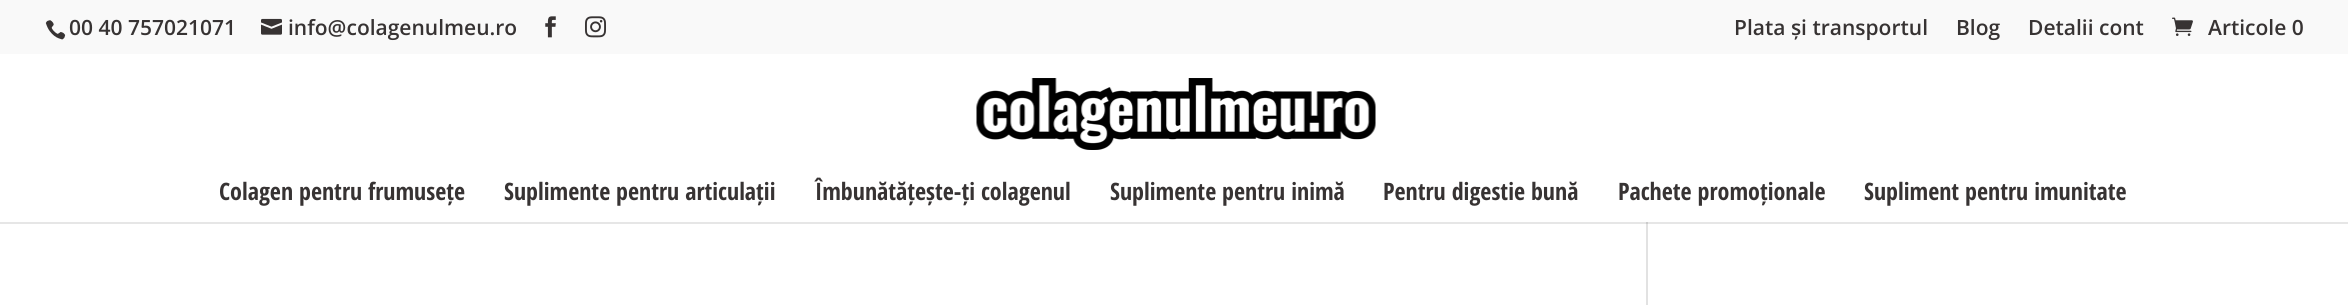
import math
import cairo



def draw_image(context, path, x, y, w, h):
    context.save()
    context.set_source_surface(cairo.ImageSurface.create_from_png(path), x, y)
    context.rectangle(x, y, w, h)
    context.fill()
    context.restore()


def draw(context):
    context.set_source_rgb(1, 1, 1)
    context.paint()
    context.set_source_rgb(230 / 255, 230 / 255, 230 / 255)
    context.rectangle(0, 222, 2348, 2)
    context.fill()
    context.set_source_rgb(249 / 255, 249 / 255, 249 / 255)
    context.rectangle(0, 0, 2348, 54)
    context.fill()
    draw_image(context, "images/1.png", 45, 20, 21, 20)
    draw_image(context, "images/2.png", 261, 18, 21, 17)
    draw_image(context, "images/3.png", 545, 16, 11, 22)
    draw_image(context, "images/4.png", 585, 16, 21, 22)
    draw_image(context, "images/5.png", 2172, 17, 21, 19)
    draw_image(context, "images/6.png", 976, 78, 400, 72)
    context.set_source_rgb(226 / 255, 226 / 255, 226 / 255)
    context.rectangle(1646, 222, 2, 83)
    context.fill()
    context.set_source_rgb(203 / 255, 203 / 255, 203 / 255)
    context.rectangle(1646, 222, 2, 2)
    context.fill()
    context.select_font_face("Open Sans SemiBold")
    context.set_font_size(21)
    context.set_source_rgb(55 / 255, 51 / 255, 51 / 255)
    context.move_to(69, 35)
    context.show_text("00 40 757021071")
    context.move_to(288, 35)
    context.show_text("info@colagenulmeu.ro")
    context.move_to(1734, 35)
    context.show_text("Plata și transportul")
    context.move_to(1956, 35)
    context.show_text("Blog")
    context.move_to(2028, 35)
    context.show_text("Detalii cont")
    context.move_to(2208, 35)
    context.show_text("Articole 0")
    context.select_font_face("Open Sans Condensed", cairo.FontSlant.NORMAL, cairo.FontWeight.BOLD)
    context.set_font_size(24)
    context.move_to(219, 200)
    context.show_text("Colagen pentru frumusețe")
    context.move_to(504, 200)
    context.show_text("Suplimente pentru articulații")
    context.move_to(815, 200)
    context.show_text("Îmbunătățește-ți colagenul")
    context.move_to(1110, 200)
    context.show_text("Suplimente pentru inimă")
    context.move_to(1383, 200)
    context.show_text("Pentru digestie bună")
    context.move_to(1618, 200)
    context.show_text("Pachete promoționale")
    context.move_to(1864, 200)
    context.show_text("Supliment pentru imunitate")


surface = cairo.ImageSurface(cairo.Format.RGB24, 2348, 305)
context = cairo.Context(surface)
options = cairo.FontOptions()
options.set_hint_metrics(cairo.HintMetrics.OFF)
options.set_hint_style(cairo.HintStyle.NONE)
context.set_font_options(options)
context.set_miter_limit(4)
draw(context)
surface.write_to_png("out.png")
